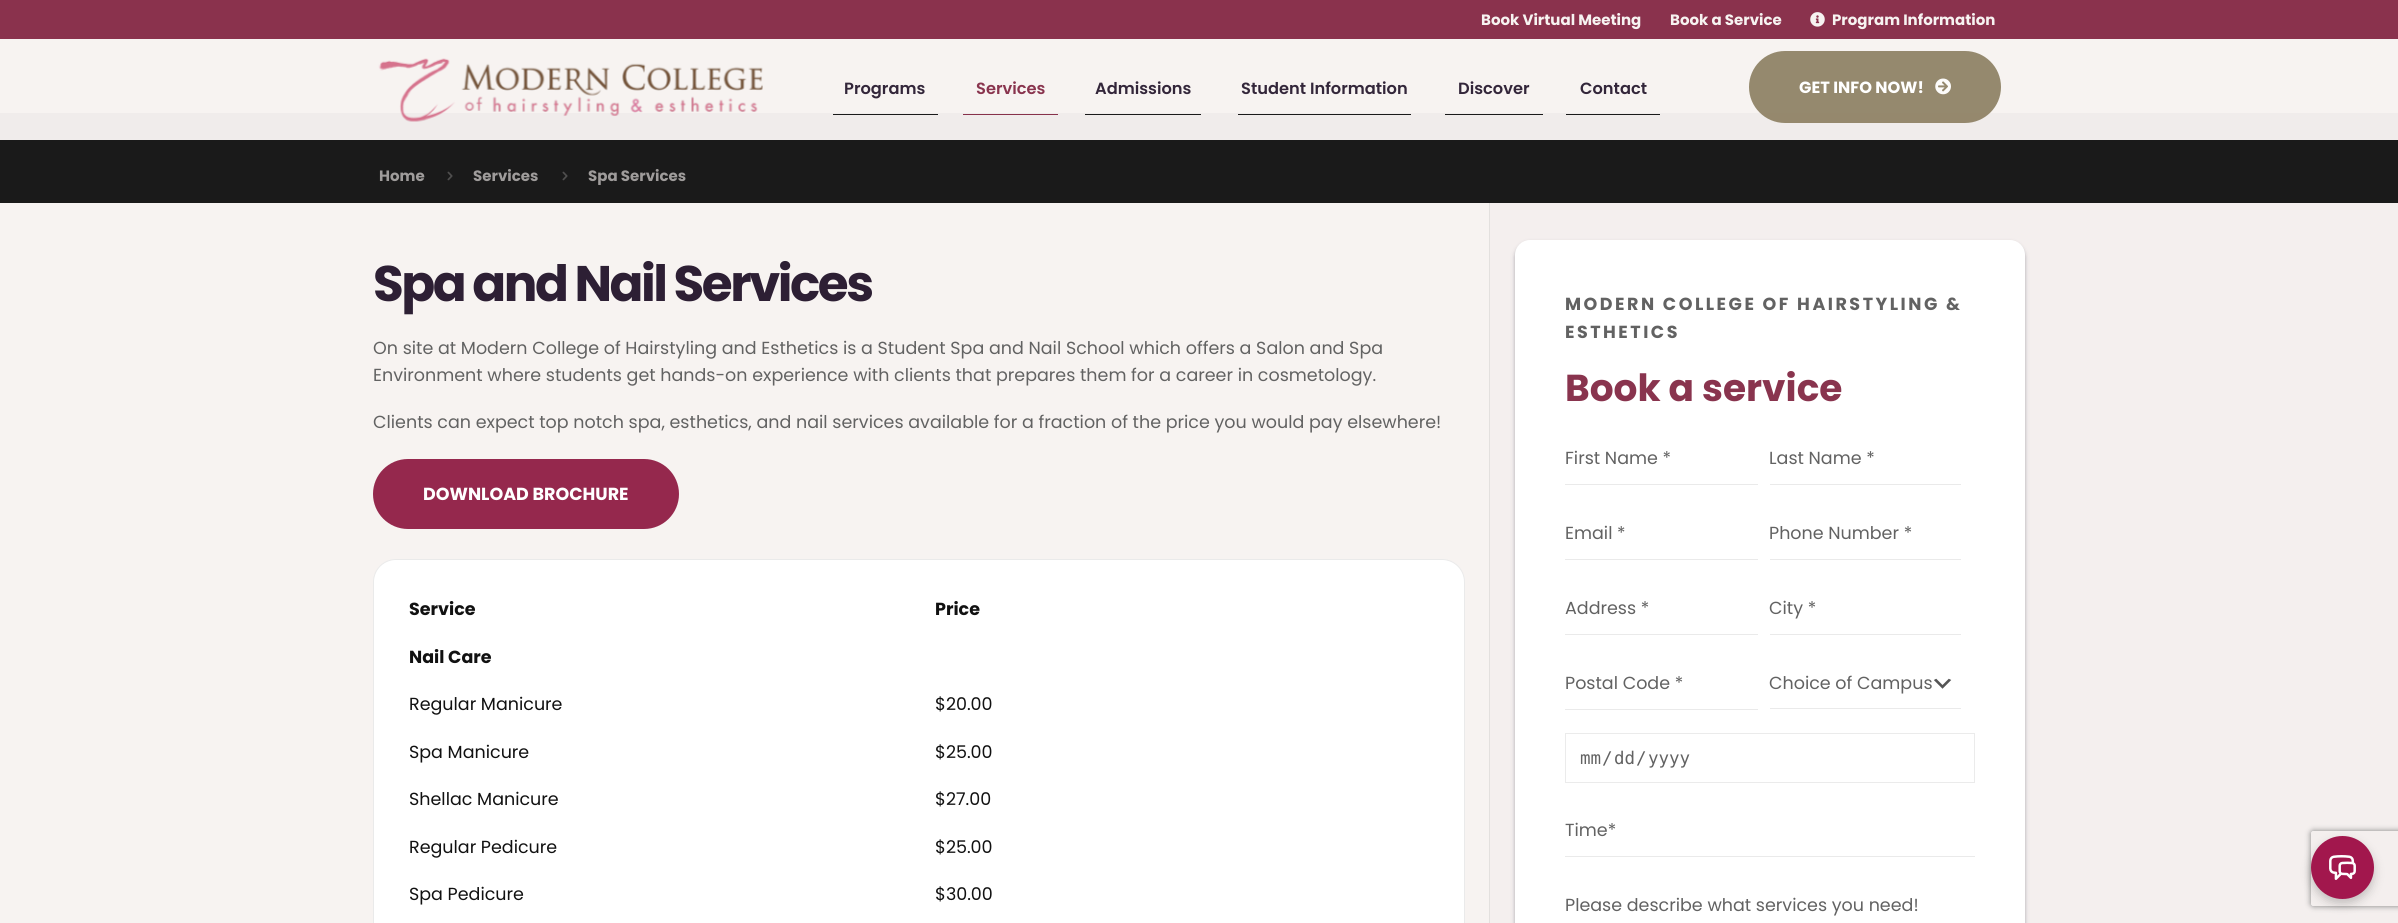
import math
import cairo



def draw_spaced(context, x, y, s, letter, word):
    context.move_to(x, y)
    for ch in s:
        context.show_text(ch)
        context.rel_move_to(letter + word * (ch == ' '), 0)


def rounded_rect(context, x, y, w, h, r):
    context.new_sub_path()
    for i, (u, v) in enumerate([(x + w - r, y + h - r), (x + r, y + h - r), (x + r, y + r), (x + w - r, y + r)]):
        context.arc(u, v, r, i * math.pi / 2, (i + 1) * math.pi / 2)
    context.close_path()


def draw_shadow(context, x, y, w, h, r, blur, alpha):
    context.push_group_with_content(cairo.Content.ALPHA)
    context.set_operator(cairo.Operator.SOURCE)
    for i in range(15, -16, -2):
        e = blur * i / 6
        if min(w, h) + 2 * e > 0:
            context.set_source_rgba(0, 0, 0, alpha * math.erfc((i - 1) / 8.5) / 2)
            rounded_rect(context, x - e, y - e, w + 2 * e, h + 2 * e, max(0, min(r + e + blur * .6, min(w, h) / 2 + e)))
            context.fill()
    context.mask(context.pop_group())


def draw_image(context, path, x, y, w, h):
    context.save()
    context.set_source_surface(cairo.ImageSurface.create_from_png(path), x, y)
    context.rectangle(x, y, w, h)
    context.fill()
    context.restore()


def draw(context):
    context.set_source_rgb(247 / 255, 243 / 255, 241 / 255)
    context.paint()
    context.set_source_rgb(138 / 255, 50 / 255, 77 / 255)
    context.rectangle(0, 0, 2398, 39)
    context.fill()
    draw_image(context, "images/1.png", 1810, 12, 15, 15)
    context.set_source_rgb(240 / 255, 236 / 255, 235 / 255)
    context.rectangle(0, 113, 2398, 27)
    context.fill()
    draw_image(context, "images/2.png", 378, 58, 385, 64)
    context.set_source_rgb(26 / 255, 26 / 255, 26 / 255)
    context.rectangle(833, 114, 105, 1)
    context.fill()
    context.set_source_rgb(135 / 255, 49 / 255, 75 / 255)
    context.rectangle(963, 114, 95, 1)
    context.fill()
    context.set_source_rgb(26 / 255, 26 / 255, 26 / 255)
    context.rectangle(1085, 114, 116, 1)
    context.fill()
    context.rectangle(1238, 114, 173, 1)
    context.fill()
    context.rectangle(1445, 114, 98, 1)
    context.fill()
    context.rectangle(1566, 114, 94, 1)
    context.fill()
    context.set_source_rgba(146 / 255, 134 / 255, 106 / 255, 0.97)
    rounded_rect(context, 1749, 51, 252, 72, 36)
    context.fill()
    draw_image(context, "images/3.png", 1935, 78, 16, 17)
    context.set_source_rgb(26 / 255, 26 / 255, 26 / 255)
    context.rectangle(0, 140, 2398, 63)
    context.fill()
    draw_image(context, "images/4.png", 447, 171, 6, 10)
    draw_image(context, "images/4.png", 562, 171, 6, 10)
    context.set_source_rgb(149 / 255, 40 / 255, 77 / 255)
    rounded_rect(context, 373, 459, 306, 70, 35)
    context.fill()
    context.set_source_rgb(1, 1, 1)
    rounded_rect(context, 373.5, 559.5, 1091, 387, 22.5)
    context.fill_preserve()
    context.set_source_rgb(234 / 255, 234 / 255, 234 / 255)
    context.set_line_width(1)
    context.stroke()
    context.set_source_rgb(227 / 255, 224 / 255, 222 / 255)
    context.rectangle(1489, 203, 1, 720)
    context.fill()
    context.set_source_rgb(244 / 255, 239 / 255, 238 / 255)
    context.rectangle(1490, 203, 908, 720)
    context.fill()
    context.set_source_rgb(0, 0, 0)
    draw_shadow(context, 1516, 243, 508, 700, 14, 2, 0.3)
    context.set_source_rgb(50 / 255, 50 / 255, 93 / 255)
    draw_shadow(context, 1516, 244, 508, 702, 14, 3, 0.25)
    context.set_source_rgb(1, 1, 1)
    rounded_rect(context, 1515, 240, 510, 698, 15)
    context.fill()
    context.set_source_rgb(234 / 255, 234 / 255, 234 / 255)
    context.rectangle(1565, 484, 193, 1)
    context.fill()
    context.rectangle(1770, 484, 191, 1)
    context.fill()
    context.rectangle(1565, 559, 193, 1)
    context.fill()
    context.rectangle(1770, 559, 191, 1)
    context.fill()
    context.rectangle(1565, 634, 193, 1)
    context.fill()
    context.rectangle(1770, 634, 191, 1)
    context.fill()
    context.rectangle(1565, 709, 193, 1)
    context.fill()
    draw_image(context, "images/5.png", 1934, 678, 18, 11)
    context.rectangle(1770, 708, 191, 1)
    context.fill()
    context.rectangle(1565.5, 733.5, 409, 49)
    context.set_source_rgb(235 / 255, 235 / 255, 235 / 255)
    context.stroke()
    context.set_source_rgb(234 / 255, 234 / 255, 234 / 255)
    context.rectangle(1565, 856, 410, 1)
    context.fill()
    context.save()
    context.set_fill_rule(cairo.FillRule.EVEN_ODD)
    context.new_path()
    context.move_to(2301, 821)
    context.line_to(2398, 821)
    context.line_to(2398, 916)
    context.line_to(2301, 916)
    context.close_path()
    context.move_to(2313.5, 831)
    context.line_to(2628.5, 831)
    context.curve_to(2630, 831, 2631, 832, 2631, 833.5)
    context.line_to(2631, 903.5)
    context.curve_to(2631, 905, 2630, 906, 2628.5, 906)
    context.line_to(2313.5, 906)
    context.curve_to(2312, 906, 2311, 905, 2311, 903.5)
    context.line_to(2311, 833.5)
    context.curve_to(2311, 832, 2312, 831, 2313.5, 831)
    context.close_path()
    context.clip()
    context.set_source_rgb(128 / 255, 128 / 255, 128 / 255)
    draw_shadow(context, 2311, 831, 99, 75, 2.5, 3, 1)
    context.restore()
    context.set_source_rgb(0, 0, 0)
    draw_shadow(context, 2311, 841, 63, 63, 31.5, 5, 0.2)
    context.set_source_rgb(162 / 255, 23 / 255, 77 / 255)
    context.arc(2342.5, 867.5, 31.5, 0, 2 * math.pi)
    context.fill()
    draw_image(context, "images/6.png", 2329, 855, 27, 25)
    context.select_font_face("Poppins", cairo.FontSlant.NORMAL, cairo.FontWeight.BOLD)
    context.set_font_size(15)
    context.set_source_rgb(247 / 255, 243 / 255, 241 / 255)
    context.move_to(1481, 25)
    context.show_text("Book Virtual Meeting")
    context.move_to(1670, 25)
    context.show_text("Book a Service")
    context.move_to(1832, 25)
    context.show_text("Program Information")
    context.select_font_face("Poppins SemiBold")
    context.set_font_size(16.25)
    context.set_source_rgb(51 / 255, 38 / 255, 58 / 255)
    context.move_to(844, 94)
    context.show_text("Programs")
    context.set_source_rgb(137 / 255, 52 / 255, 78 / 255)
    context.move_to(976, 94)
    context.show_text("Services")
    context.set_source_rgb(51 / 255, 38 / 255, 58 / 255)
    context.move_to(1095, 94)
    context.show_text("Admissions")
    context.move_to(1241, 94)
    context.show_text("Student Information")
    context.move_to(1458, 94)
    context.show_text("Discover")
    context.move_to(1580, 94)
    context.show_text("Contact")
    context.select_font_face("Poppins", cairo.FontSlant.NORMAL, cairo.FontWeight.BOLD)
    context.set_source_rgb(1, 1, 1)
    context.move_to(1799, 93)
    context.show_text("GET INFO NOW!")
    context.set_font_size(15)
    context.set_source_rgb(159 / 255, 156 / 255, 155 / 255)
    context.move_to(379, 181)
    context.show_text("Home")
    context.move_to(473, 181)
    context.show_text("Services")
    context.move_to(588, 181)
    context.show_text("Spa Services")
    context.set_font_size(50)
    context.set_source_rgb(45 / 255, 31 / 255, 52 / 255)
    draw_spaced(context, 373, 301, "Spa and Nail Services", -2.5, 0)
    context.select_font_face("Poppins")
    context.set_font_size(17.5)
    context.set_source_rgb(98 / 255, 98 / 255, 98 / 255)
    context.move_to(373, 354)
    context.show_text("On site at Modern College of Hairstyling and Esthetics is a Student Spa and Nail School which offers a Salon and Spa")
    context.move_to(373, 381)
    context.show_text("Environment where students get hands-on experience with clients that prepares them for a career in cosmetology.")
    context.move_to(373, 428)
    context.show_text("Clients can expect top notch spa, esthetics, and nail services available for a fraction of the price you would pay elsewhere!")
    context.select_font_face("Poppins", cairo.FontSlant.NORMAL, cairo.FontWeight.BOLD)
    context.set_source_rgb(1, 1, 1)
    context.move_to(423, 500)
    context.show_text("DOWNLOAD BROCHURE")
    context.set_source_rgb(17 / 255, 17 / 255, 17 / 255)
    context.move_to(409, 615)
    context.show_text("Service")
    context.move_to(935, 615)
    context.show_text("Price")
    context.move_to(409, 663)
    context.show_text("Nail Care")
    context.select_font_face("Poppins")
    context.move_to(409, 710)
    context.show_text("Regular Manicure")
    context.move_to(935, 710)
    context.show_text("$20.00")
    context.move_to(409, 758)
    context.show_text("Spa Manicure")
    context.move_to(935, 758)
    context.show_text("$25.00")
    context.move_to(409, 805)
    context.show_text("Shellac Manicure")
    context.move_to(935, 805)
    context.show_text("$27.00")
    context.move_to(409, 853)
    context.show_text("Regular Pedicure")
    context.move_to(935, 853)
    context.show_text("$25.00")
    context.move_to(409, 900)
    context.show_text("Spa Pedicure")
    context.move_to(935, 900)
    context.show_text("$30.00")
    context.select_font_face("Poppins", cairo.FontSlant.NORMAL, cairo.FontWeight.BOLD)
    context.set_source_rgb(98 / 255, 98 / 255, 98 / 255)
    draw_spaced(context, 1565, 310, "MODERN COLLEGE OF HAIRSTYLING &", 2.5, 0)
    draw_spaced(context, 1565, 338, "ESTHETICS", 2.5, 0)
    context.set_font_size(37.5)
    context.set_source_rgb(137 / 255, 52 / 255, 78 / 255)
    context.move_to(1565, 401)
    context.show_text("Book a service")
    context.select_font_face("Poppins")
    context.set_font_size(17.5)
    context.set_source_rgb(98 / 255, 98 / 255, 98 / 255)
    context.move_to(1565, 464)
    context.show_text("First Name *")
    context.move_to(1769, 464)
    context.show_text("Last Name *")
    context.move_to(1565, 539)
    context.show_text("Email *")
    context.move_to(1769, 539)
    context.show_text("Phone Number *")
    context.move_to(1565, 614)
    context.show_text("Address *")
    context.move_to(1769, 614)
    context.show_text("City *")
    context.move_to(1565, 689)
    context.show_text("Postal Code *")
    context.move_to(1769, 689)
    context.show_text("Choice of Campus")
    context.select_font_face("DejaVu Sans Mono")
    context.move_to(1580, 764)
    context.show_text("mm")
    context.move_to(1602, 764)
    context.show_text("/")
    context.move_to(1614, 764)
    context.show_text("dd")
    context.move_to(1636, 764)
    context.show_text("/")
    context.move_to(1648, 764)
    context.show_text("yyyy")
    context.select_font_face("Poppins")
    context.move_to(1565, 836)
    context.show_text("Time*")
    context.move_to(1565, 911)
    context.show_text("Please describe what services you need!")


surface = cairo.ImageSurface(cairo.Format.RGB24, 2398, 923)
context = cairo.Context(surface)
options = cairo.FontOptions()
options.set_hint_metrics(cairo.HintMetrics.OFF)
options.set_hint_style(cairo.HintStyle.NONE)
context.set_font_options(options)
context.set_miter_limit(4)
draw(context)
surface.write_to_png("out.png")
